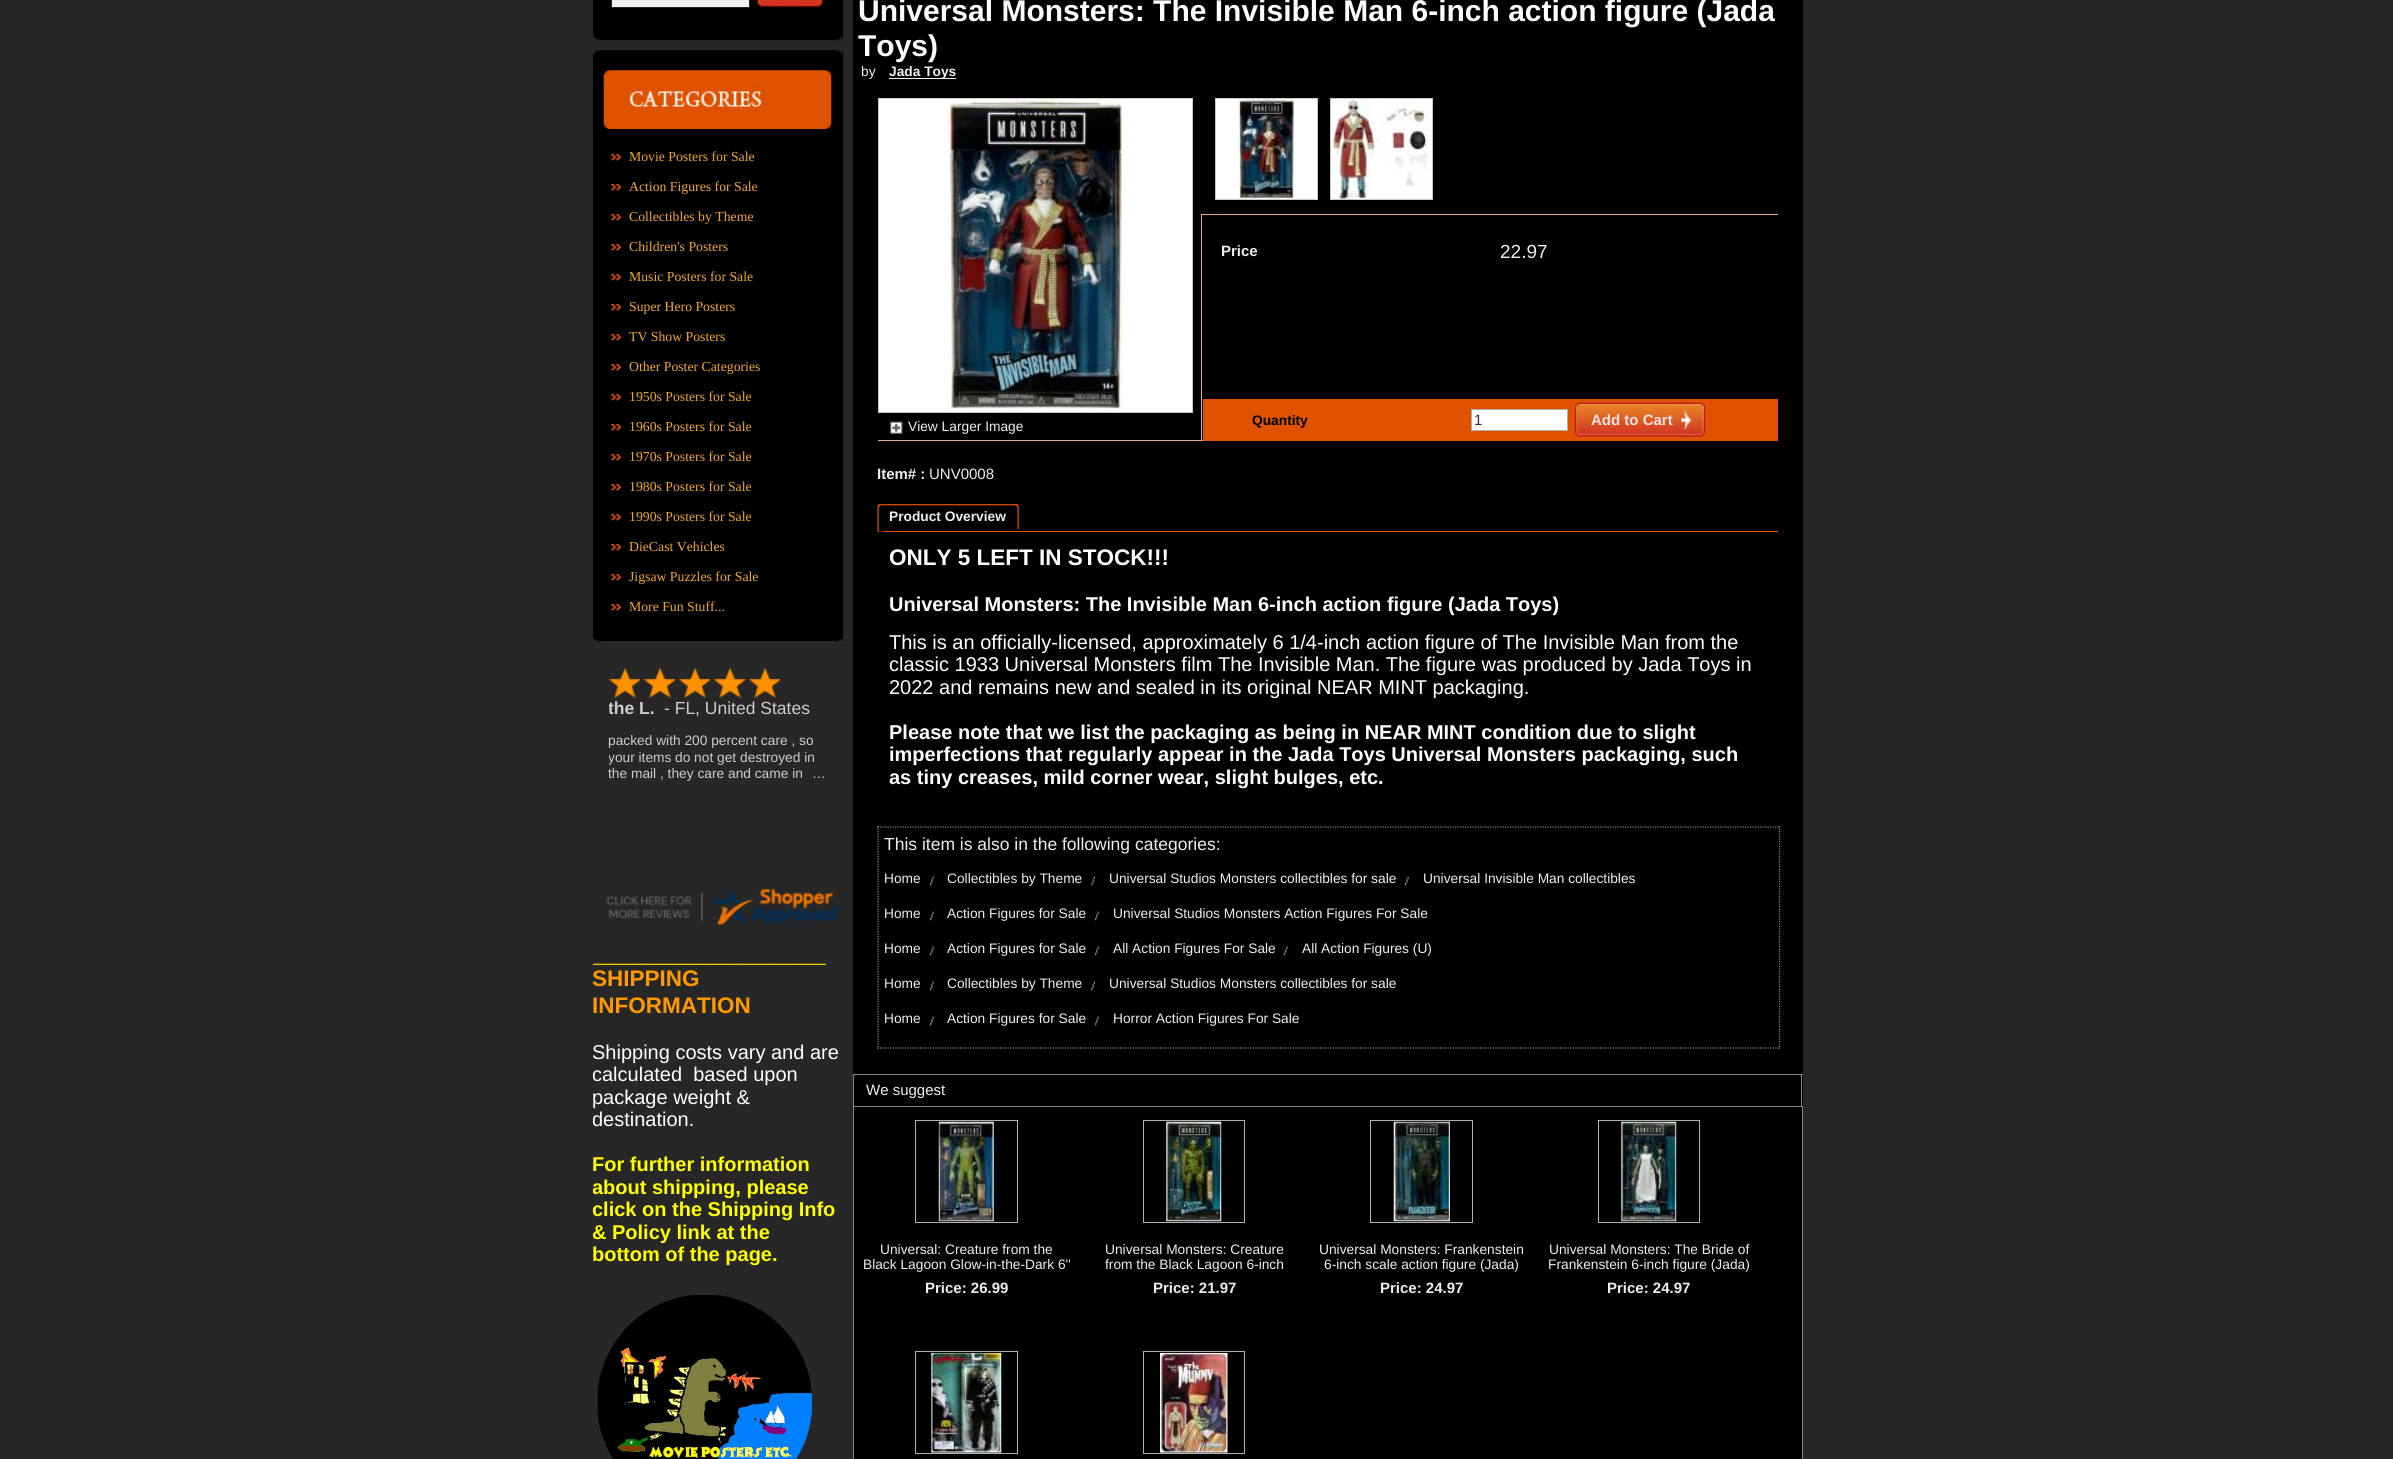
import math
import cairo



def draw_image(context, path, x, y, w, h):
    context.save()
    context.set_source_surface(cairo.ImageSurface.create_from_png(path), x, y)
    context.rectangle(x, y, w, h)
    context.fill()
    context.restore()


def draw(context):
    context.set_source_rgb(39 / 255, 39 / 255, 39 / 255)
    context.paint()
    context.set_source_rgb(0, 0, 0)
    context.rectangle(593, 0, 250, 40)
    context.fill()
    context.set_source_rgb(239 / 255, 239 / 255, 239 / 255)
    context.rectangle(611.5, -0.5, 138, 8)
    context.fill_preserve()
    context.set_source_rgb(40 / 255, 40 / 255, 40 / 255)
    context.set_line_width(1)
    context.stroke()
    draw_image(context, "images/1.png", 757, 0, 66, 7)
    draw_image(context, "images/2.png", 835, 35, 8, 6)
    draw_image(context, "images/3.png", 592, 33, 9, 8)
    context.set_source_rgb(0, 0, 0)
    context.rectangle(593, 50, 250, 591)
    context.fill()
    draw_image(context, "images/4.png", 836, 50, 7, 5)
    draw_image(context, "images/5.png", 592, 50, 8, 8)
    draw_image(context, "images/6.png", 603, 70, 229, 59)
    draw_image(context, "images/7.png", 611, 154, 11, 7)
    draw_image(context, "images/7.png", 611, 184, 11, 7)
    draw_image(context, "images/7.png", 611, 214, 11, 7)
    draw_image(context, "images/7.png", 611, 244, 11, 7)
    draw_image(context, "images/7.png", 611, 274, 11, 7)
    draw_image(context, "images/7.png", 611, 304, 11, 7)
    draw_image(context, "images/7.png", 611, 334, 11, 7)
    draw_image(context, "images/7.png", 611, 364, 11, 7)
    draw_image(context, "images/7.png", 611, 394, 11, 7)
    draw_image(context, "images/7.png", 611, 424, 11, 7)
    draw_image(context, "images/7.png", 611, 454, 11, 7)
    draw_image(context, "images/7.png", 611, 484, 11, 7)
    draw_image(context, "images/7.png", 611, 514, 11, 7)
    draw_image(context, "images/7.png", 611, 544, 11, 7)
    draw_image(context, "images/7.png", 611, 574, 11, 7)
    draw_image(context, "images/7.png", 611, 604, 11, 7)
    draw_image(context, "images/8.png", 835, 636, 8, 6)
    draw_image(context, "images/9.png", 592, 634, 10, 8)
    draw_image(context, "images/10.png", 609, 668, 31, 30)
    draw_image(context, "images/11.png", 643, 668, 32, 30)
    draw_image(context, "images/11.png", 678, 668, 32, 30)
    draw_image(context, "images/11.png", 713, 668, 32, 30)
    draw_image(context, "images/11.png", 748, 668, 32, 30)
    draw_image(context, "images/12.png", 606, 888, 235, 38)
    draw_image(context, "images/13.png", 596, 1294, 217, 165)
    context.rectangle(853, 0, 950, 1459)
    context.fill()
    context.set_source_rgb(238 / 255, 238 / 255, 238 / 255)
    context.rectangle(889, 78, 67, 1)
    context.fill()
    context.set_source_rgb(1, 1, 1)
    context.rectangle(1215.5, 98.5, 102, 101)
    context.fill_preserve()
    context.set_source_rgb(201 / 255, 201 / 255, 201 / 255)
    context.stroke()
    draw_image(context, "images/14.png", 1238, 99, 56, 100)
    context.set_source_rgb(1, 1, 1)
    context.rectangle(1330.5, 98.5, 102, 101)
    context.fill_preserve()
    context.set_source_rgb(201 / 255, 201 / 255, 201 / 255)
    context.stroke()
    draw_image(context, "images/15.png", 1331, 99, 99, 100)
    context.set_source_rgb(226 / 255, 168 / 255, 135 / 255)
    context.rectangle(878, 440, 325, 1)
    context.fill()
    context.set_source_rgb(1, 1, 1)
    context.rectangle(878.5, 98.5, 314, 314)
    context.fill_preserve()
    context.set_source_rgb(201 / 255, 201 / 255, 201 / 255)
    context.stroke()
    draw_image(context, "images/16.png", 947, 99, 176, 312)
    draw_image(context, "images/17.png", 890, 421, 13, 13)
    context.set_source_rgb(226 / 255, 168 / 255, 135 / 255)
    context.rectangle(1201, 214, 577, 1)
    context.fill()
    context.rectangle(1201, 214, 1, 226)
    context.fill()
    context.set_source_rgb(222 / 255, 82 / 255, 2 / 255)
    context.rectangle(1203, 399, 575, 42)
    context.fill()
    context.set_source_rgb(1, 1, 1)
    context.rectangle(1471.5, 409.5, 96, 21)
    context.fill_preserve()
    context.set_source_rgb(173 / 255, 173 / 255, 173 / 255)
    context.stroke()
    draw_image(context, "images/18.png", 1578, 402, 115, 35)
    draw_image(context, "images/19.png", 1575, 402, 6, 35)
    draw_image(context, "images/20.png", 1676, 402, 29, 35)
    draw_image(context, "images/21.png", 877, 504, 146, 1)
    draw_image(context, "images/22.png", 877, 504, 142, 2)
    draw_image(context, "images/23.png", 1012, 504, 7, 25)
    context.set_source_rgb(222 / 255, 82 / 255, 2 / 255)
    context.rectangle(878, 531, 900, 1)
    context.fill()
    draw_image(context, "images/24.png", 877, 504, 7, 28)
    context.new_path()
    context.move_to(877.5, 827)
    context.line_to(1780, 827)
    context.set_source_rgb(136 / 255, 136 / 255, 136 / 255)
    context.set_line_width(1.2)
    context.set_dash([1.25, 1.25])
    context.stroke()
    context.new_path()
    context.move_to(1779.5, 826)
    context.line_to(1779.5, 1049)
    context.stroke()
    context.new_path()
    context.move_to(877.5, 1048)
    context.line_to(1780, 1048)
    context.stroke()
    context.new_path()
    context.move_to(878, 826)
    context.line_to(878, 1049)
    context.stroke()
    draw_image(context, "images/25.png", 930, 876, 4, 10)
    draw_image(context, "images/26.png", 1091, 876, 4, 10)
    draw_image(context, "images/27.png", 1405, 876, 4, 10)
    draw_image(context, "images/25.png", 930, 911, 4, 10)
    draw_image(context, "images/27.png", 1095, 911, 4, 10)
    draw_image(context, "images/25.png", 930, 946, 4, 10)
    draw_image(context, "images/27.png", 1095, 946, 4, 10)
    draw_image(context, "images/28.png", 1283, 946, 5, 10)
    draw_image(context, "images/25.png", 930, 981, 4, 10)
    draw_image(context, "images/26.png", 1091, 981, 4, 10)
    draw_image(context, "images/25.png", 930, 1016, 4, 10)
    draw_image(context, "images/27.png", 1095, 1016, 4, 10)
    context.set_source_rgb(132 / 255, 132 / 255, 132 / 255)
    context.rectangle(853, 1074, 950, 1)
    context.fill()
    context.rectangle(1801, 1074, 1, 32)
    context.fill()
    context.rectangle(853, 1074, 1, 32)
    context.fill()
    context.rectangle(853.5, 1106.5, 949, 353)
    context.set_line_width(1)
    context.set_dash([])
    context.stroke()
    context.rectangle(915.5, 1120.5, 102, 102)
    context.set_source_rgb(177 / 255, 177 / 255, 177 / 255)
    context.stroke()
    draw_image(context, "images/29.png", 938, 1121, 56, 101)
    context.rectangle(1143.5, 1120.5, 101, 102)
    context.stroke()
    draw_image(context, "images/30.png", 1166, 1121, 56, 101)
    context.rectangle(1370.5, 1120.5, 102, 102)
    context.stroke()
    draw_image(context, "images/31.png", 1393, 1121, 57, 101)
    context.rectangle(1598.5, 1120.5, 101, 102)
    context.stroke()
    draw_image(context, "images/32.png", 1621, 1121, 56, 101)
    context.rectangle(915.5, 1351.5, 102, 102)
    context.stroke()
    draw_image(context, "images/33.png", 931, 1352, 71, 101)
    context.rectangle(1143.5, 1351.5, 101, 102)
    context.stroke()
    draw_image(context, "images/34.png", 1160, 1352, 68, 101)
    context.select_font_face("Liberation Serif")
    context.set_font_size(13.75)
    context.set_source_rgb(241 / 255, 168 / 255, 40 / 255)
    context.move_to(629, 161)
    context.show_text("Movie Posters for Sale")
    context.move_to(629, 191)
    context.show_text("Action Figures for Sale")
    context.move_to(629, 221)
    context.show_text("Collectibles by Theme")
    context.move_to(629, 251)
    context.show_text("Children's Posters")
    context.move_to(629, 281)
    context.show_text("Music Posters for Sale")
    context.move_to(629, 311)
    context.show_text("Super Hero Posters")
    context.move_to(629, 341)
    context.show_text("TV Show Posters")
    context.move_to(629, 371)
    context.show_text("Other Poster Categories")
    context.move_to(629, 401)
    context.show_text("1950s Posters for Sale")
    context.move_to(629, 431)
    context.show_text("1960s Posters for Sale")
    context.move_to(629, 461)
    context.show_text("1970s Posters for Sale")
    context.move_to(629, 491)
    context.show_text("1980s Posters for Sale")
    context.move_to(629, 521)
    context.show_text("1990s Posters for Sale")
    context.move_to(629, 551)
    context.show_text("DieCast Vehicles")
    context.move_to(629, 581)
    context.show_text("Jigsaw Puzzles for Sale")
    context.move_to(629, 611)
    context.show_text("More Fun Stuff...")
    context.save()
    context.rectangle(609, 698, 217, 20)
    context.clip()
    context.select_font_face("Liberation Sans", cairo.FontSlant.NORMAL, cairo.FontWeight.BOLD)
    context.set_font_size(17.5)
    context.set_source_rgb(204 / 255, 204 / 255, 204 / 255)
    context.move_to(608, 714)
    context.show_text("the L.")
    context.restore()
    context.select_font_face("Liberation Sans")
    context.set_font_size(17.5)
    context.set_source_rgb(204 / 255, 204 / 255, 204 / 255)
    context.move_to(664, 714)
    context.show_text("- FL, United States")
    context.set_font_size(13.75)
    context.move_to(608, 745)
    context.show_text("packed with 200 percent care , so")
    context.save()
    context.rectangle(609, 733, 217, 50)
    context.clip()
    context.move_to(608, 762)
    context.show_text("your items")
    context.restore()
    context.move_to(675, 762)
    context.show_text("do not get destroyed in")
    context.move_to(608, 778)
    context.show_text("the mail , they care and came in")
    context.move_to(812, 778)
    context.show_text("…")
    context.save()
    context.rectangle(593, 651, 250, 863)
    context.clip()
    context.set_font_size(20)
    context.set_source_rgb(1, 204 / 255, 0)
    context.move_to(592, 961)
    context.show_text("_____________________")
    context.restore()
    context.select_font_face("Liberation Sans", cairo.FontSlant.NORMAL, cairo.FontWeight.BOLD)
    context.set_font_size(22.5)
    context.set_source_rgb(1, 153 / 255, 0)
    context.move_to(592, 986)
    context.show_text("SHIPPING")
    context.move_to(592, 1013)
    context.show_text("INFORMATION")
    context.select_font_face("Liberation Sans")
    context.set_font_size(20)
    context.set_source_rgb(1, 1, 1)
    context.move_to(592, 1059)
    context.show_text("Shipping costs vary and are")
    context.save()
    context.rectangle(593, 651, 250, 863)
    context.clip()
    context.move_to(592, 1081)
    context.show_text("calculated  based upon")
    context.restore()
    context.move_to(592, 1104)
    context.show_text("package weight &")
    context.save()
    context.rectangle(593, 651, 250, 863)
    context.clip()
    context.move_to(592, 1126)
    context.show_text("destination.")
    context.restore()
    context.select_font_face("Liberation Sans", cairo.FontSlant.NORMAL, cairo.FontWeight.BOLD)
    context.set_source_rgb(1, 1, 0)
    context.move_to(592, 1171)
    context.show_text("For further information")
    context.save()
    context.rectangle(593, 651, 250, 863)
    context.clip()
    context.move_to(592, 1194)
    context.show_text("about shipping, please")
    context.move_to(592, 1216)
    context.show_text("click on the Shipping Info")
    context.move_to(592, 1239)
    context.show_text("&")
    context.restore()
    context.move_to(612, 1239)
    context.show_text("Policy link at the")
    context.move_to(592, 1261)
    context.show_text("bottom of the page.")
    context.set_font_size(30)
    context.set_source_rgb(1, 1, 1)
    context.move_to(858, 21)
    context.show_text("Universal Monsters: The Invisible Man 6-inch action figure (Jada")
    context.move_to(858, 56)
    context.show_text("Toys)")
    context.select_font_face("Liberation Sans")
    context.set_font_size(13.75)
    context.set_source_rgb(238 / 255, 238 / 255, 238 / 255)
    context.move_to(861, 76)
    context.show_text("by")
    context.select_font_face("Liberation Sans", cairo.FontSlant.NORMAL, cairo.FontWeight.BOLD)
    context.move_to(889, 76)
    context.show_text("Jada Toys")
    context.select_font_face("Liberation Sans")
    context.move_to(908, 431)
    context.show_text("View Larger Image")
    context.select_font_face("Liberation Sans", cairo.FontSlant.NORMAL, cairo.FontWeight.BOLD)
    context.set_font_size(15)
    context.move_to(1221, 256)
    context.show_text("Price")
    context.select_font_face("Liberation Sans")
    context.set_font_size(19)
    context.move_to(1500, 258)
    context.show_text("22.97")
    context.select_font_face("Liberation Sans", cairo.FontSlant.NORMAL, cairo.FontWeight.BOLD)
    context.set_font_size(13.75)
    context.set_source_rgb(0, 0, 0)
    context.move_to(1252, 425)
    context.show_text("Quantity")
    context.select_font_face("Liberation Sans")
    context.set_font_size(15)
    context.set_source_rgb(37 / 255, 46 / 255, 90 / 255)
    context.move_to(1474, 425)
    context.show_text("1")
    context.select_font_face("Liberation Sans", cairo.FontSlant.NORMAL, cairo.FontWeight.BOLD)
    context.set_source_rgb(1, 227 / 255, 227 / 255)
    context.move_to(1591, 425)
    context.show_text("Add to Cart")
    context.set_source_rgb(238 / 255, 238 / 255, 238 / 255)
    context.move_to(877, 479)
    context.show_text("Item# :")
    context.select_font_face("Liberation Sans")
    context.move_to(929, 479)
    context.show_text("UNV0008")
    context.select_font_face("Liberation Sans", cairo.FontSlant.NORMAL, cairo.FontWeight.BOLD)
    context.set_font_size(13.75)
    context.move_to(889, 521)
    context.show_text("Product Overview")
    context.set_font_size(22.5)
    context.set_source_rgb(1, 1, 1)
    context.move_to(889, 565)
    context.show_text("ONLY 5 LEFT IN STOCK!!!")
    context.set_font_size(20)
    context.move_to(889, 611)
    context.show_text("Universal Monsters: The Invisible Man 6-inch action figure (Jada Toys)")
    context.select_font_face("Liberation Sans")
    context.move_to(889, 649)
    context.show_text("This is an officially-licensed, approximately 6 1/4-inch action figure of The Invisible Man from the")
    context.move_to(889, 671)
    context.show_text("classic 1933 Universal Monsters film The Invisible Man. The figure was produced by Jada Toys in")
    context.move_to(889, 694)
    context.show_text("2022 and remains new and sealed in its original NEAR MINT packaging.")
    context.select_font_face("Liberation Sans", cairo.FontSlant.NORMAL, cairo.FontWeight.BOLD)
    context.move_to(889, 739)
    context.show_text("Please note that we list the packaging as being in NEAR MINT condition due to slight")
    context.move_to(889, 761)
    context.show_text("imperfections that regularly appear in the Jada Toys Universal Monsters packaging, such")
    context.move_to(889, 784)
    context.show_text("as tiny creases, mild corner wear, slight bulges, etc.")
    context.select_font_face("Liberation Sans")
    context.set_font_size(17.5)
    context.set_source_rgb(238 / 255, 238 / 255, 238 / 255)
    context.move_to(884, 850)
    context.show_text("This item is also in the following categories:")
    context.set_font_size(13.75)
    context.move_to(884, 883)
    context.show_text("Home")
    context.move_to(947, 883)
    context.show_text("Collectibles by Theme")
    context.move_to(1109, 883)
    context.show_text("Universal Studios Monsters collectibles for sale")
    context.move_to(1423, 883)
    context.show_text("Universal Invisible Man collectibles")
    context.move_to(884, 918)
    context.show_text("Home")
    context.move_to(947, 918)
    context.show_text("Action Figures for Sale")
    context.move_to(1113, 918)
    context.show_text("Universal Studios Monsters Action Figures For Sale")
    context.move_to(884, 953)
    context.show_text("Home")
    context.move_to(947, 953)
    context.show_text("Action Figures for Sale")
    context.move_to(1113, 953)
    context.show_text("All Action Figures For Sale")
    context.move_to(1302, 953)
    context.show_text("All Action Figures (U)")
    context.move_to(884, 988)
    context.show_text("Home")
    context.move_to(947, 988)
    context.show_text("Collectibles by Theme")
    context.move_to(1109, 988)
    context.show_text("Universal Studios Monsters collectibles for sale")
    context.move_to(884, 1023)
    context.show_text("Home")
    context.move_to(947, 1023)
    context.show_text("Action Figures for Sale")
    context.move_to(1113, 1023)
    context.show_text("Horror Action Figures For Sale")
    context.set_font_size(15)
    context.move_to(866, 1095)
    context.show_text("We suggest")
    context.set_font_size(13.75)
    context.move_to(880, 1254)
    context.show_text("Universal: Creature from the")
    context.move_to(863, 1269)
    context.show_text("Black Lagoon Glow-in-the-Dark 6''")
    context.select_font_face("Liberation Sans", cairo.FontSlant.NORMAL, cairo.FontWeight.BOLD)
    context.set_font_size(15)
    context.move_to(925, 1293)
    context.show_text("Price: 26.99")
    context.select_font_face("Liberation Sans")
    context.set_font_size(13.75)
    context.move_to(1105, 1254)
    context.show_text("Universal Monsters: Creature")
    context.move_to(1105, 1269)
    context.show_text("from the Black Lagoon 6-inch")
    context.select_font_face("Liberation Sans", cairo.FontSlant.NORMAL, cairo.FontWeight.BOLD)
    context.set_font_size(15)
    context.move_to(1153, 1293)
    context.show_text("Price: 21.97")
    context.select_font_face("Liberation Sans")
    context.set_font_size(13.75)
    context.move_to(1319, 1254)
    context.show_text("Universal Monsters: Frankenstein")
    context.move_to(1324, 1269)
    context.show_text("6-inch scale action figure (Jada)")
    context.select_font_face("Liberation Sans", cairo.FontSlant.NORMAL, cairo.FontWeight.BOLD)
    context.set_font_size(15)
    context.move_to(1380, 1293)
    context.show_text("Price: 24.97")
    context.select_font_face("Liberation Sans")
    context.set_font_size(13.75)
    context.move_to(1549, 1254)
    context.show_text("Universal Monsters: The Bride of")
    context.move_to(1548, 1269)
    context.show_text("Frankenstein 6-inch figure (Jada)")
    context.select_font_face("Liberation Sans", cairo.FontSlant.NORMAL, cairo.FontWeight.BOLD)
    context.set_font_size(15)
    context.move_to(1607, 1293)
    context.show_text("Price: 24.97")


surface = cairo.ImageSurface(cairo.Format.RGB24, 2393, 1459)
context = cairo.Context(surface)
options = cairo.FontOptions()
options.set_hint_metrics(cairo.HintMetrics.OFF)
options.set_hint_style(cairo.HintStyle.NONE)
context.set_font_options(options)
context.set_miter_limit(4)
draw(context)
surface.write_to_png("out.png")
